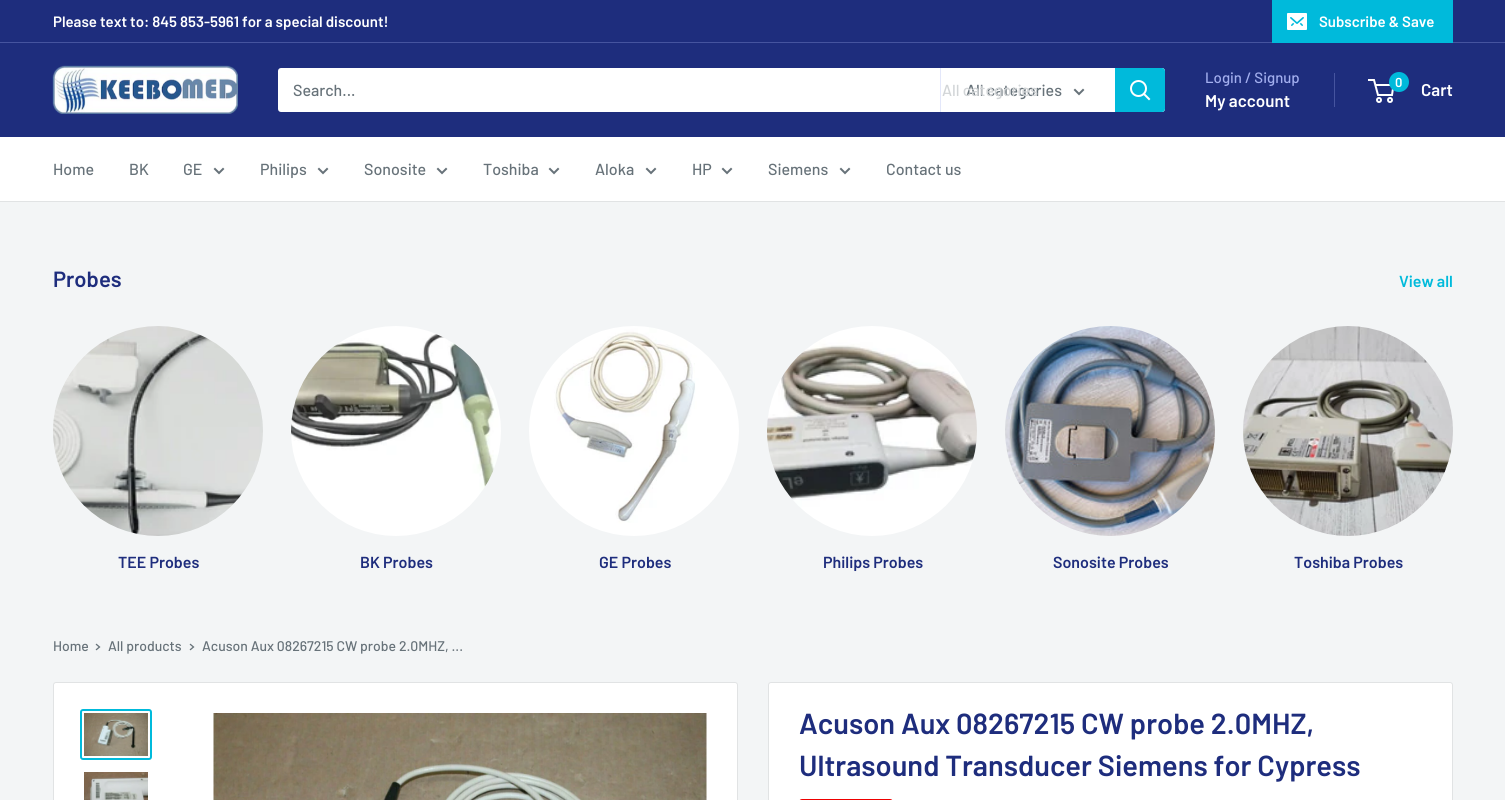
import math
import cairo



def rounded_rect(context, x, y, w, h, r):
    context.new_sub_path()
    for i, (u, v) in enumerate([(x + w - r, y + h - r), (x + r, y + h - r), (x + r, y + r), (x + w - r, y + r)]):
        context.arc(u, v, r, i * math.pi / 2, (i + 1) * math.pi / 2)
    context.close_path()


def draw_image(context, path, x, y, w, h):
    context.save()
    context.set_source_surface(cairo.ImageSurface.create_from_png(path), x, y)
    context.rectangle(x, y, w, h)
    context.fill()
    context.restore()


def draw(context):
    context.set_source_rgb(243 / 255, 245 / 255, 246 / 255)
    context.paint()
    context.set_source_rgb(30 / 255, 45 / 255, 125 / 255)
    context.rectangle(0, 0, 1505, 42)
    context.fill()
    context.set_source_rgb(70 / 255, 84 / 255, 159 / 255)
    context.rectangle(0, 42, 1505, 1)
    context.fill()
    context.set_source_rgb(0, 186 / 255, 219 / 255)
    context.rectangle(1272, 0, 181, 43)
    context.fill()
    draw_image(context, "images/1.png", 1287, 13, 20, 17)
    context.set_source_rgb(30 / 255, 45 / 255, 125 / 255)
    context.rectangle(0, 43, 1505, 94)
    context.fill()
    draw_image(context, "images/2.png", 52, 65, 186, 49)
    context.set_source_rgb(1, 1, 1)
    rounded_rect(context, 278, 68, 887, 44, 3)
    context.fill()
    context.set_source_rgb(227 / 255, 231 / 255, 250 / 255)
    context.rectangle(940, 68, 1, 44)
    context.fill()
    context.new_path()
    context.move_to(1083, 90)
    context.line_to(1079, 94)
    context.line_to(1075, 90)
    context.set_source_rgb(103 / 255, 114 / 255, 121 / 255)
    context.set_line_cap(cairo.LineCap.SQUARE)
    context.stroke()
    context.set_source_rgb(0, 186 / 255, 219 / 255)
    context.new_path()
    context.move_to(1115, 68)
    context.line_to(1162, 68)
    context.curve_to(1163.5, 68, 1165, 69.5, 1165, 71)
    context.line_to(1165, 109)
    context.curve_to(1165, 110.5, 1163.5, 112, 1162, 112)
    context.line_to(1115, 112)
    context.close_path()
    context.fill()
    context.new_path()
    context.move_to(1149, 99)
    context.line_to(1144, 94)
    context.set_source_rgb(1, 1, 1)
    context.stroke()
    context.arc(1138.5, 88.5, 7.5, 0, 2 * math.pi)
    context.set_line_cap(cairo.LineCap.BUTT)
    context.stroke()
    context.set_source_rgb(70 / 255, 84 / 255, 159 / 255)
    context.rectangle(1334, 73, 1, 34)
    context.fill()
    context.arc(1379, 100, 2, 0, 2 * math.pi)
    context.set_source_rgb(1, 1, 1)
    context.stroke()
    context.arc(1390, 100, 2, 0, 2 * math.pi)
    context.stroke()
    context.new_path()
    context.move_to(1375.5, 85)
    context.line_to(1393.5, 85)
    context.line_to(1392, 95)
    context.line_to(1378, 95)
    context.line_to(1374, 80)
    context.line_to(1368, 80)
    context.stroke()
    context.set_source_rgb(0, 186 / 255, 219 / 255)
    context.arc(1399, 82, 10, 0, 2 * math.pi)
    context.fill()
    context.set_source_rgb(1, 1, 1)
    context.rectangle(0, 137, 1505, 64)
    context.fill()
    context.set_source_rgb(225 / 255, 227 / 255, 228 / 255)
    context.rectangle(0, 201, 1505, 1)
    context.fill()
    context.new_path()
    context.move_to(223, 169)
    context.line_to(219, 173)
    context.line_to(215, 169)
    context.set_source_rgb(103 / 255, 114 / 255, 121 / 255)
    context.set_line_cap(cairo.LineCap.SQUARE)
    context.stroke()
    context.new_path()
    context.move_to(327, 169)
    context.line_to(323, 173)
    context.line_to(319, 169)
    context.stroke()
    context.new_path()
    context.move_to(446, 169)
    context.line_to(442, 173)
    context.line_to(438, 169)
    context.stroke()
    context.new_path()
    context.move_to(558, 169)
    context.line_to(554, 173)
    context.line_to(550, 169)
    context.stroke()
    context.new_path()
    context.move_to(655, 169)
    context.line_to(651, 173)
    context.line_to(647, 169)
    context.stroke()
    context.new_path()
    context.move_to(731, 169)
    context.line_to(727, 173)
    context.line_to(723, 169)
    context.stroke()
    context.new_path()
    context.move_to(849, 169)
    context.line_to(845, 173)
    context.line_to(841, 169)
    context.stroke()
    draw_image(context, "images/3.png", 53, 326, 210, 210)
    draw_image(context, "images/4.png", 291, 326, 210, 210)
    draw_image(context, "images/5.png", 529, 326, 210, 210)
    draw_image(context, "images/6.png", 767, 326, 210, 210)
    draw_image(context, "images/7.png", 1005, 326, 210, 210)
    draw_image(context, "images/8.png", 1243, 326, 210, 210)
    context.new_path()
    context.move_to(96.5, 644.5)
    context.line_to(99.5, 647)
    context.line_to(96.5, 649.5)
    context.set_line_width(1.3)
    context.stroke()
    context.new_path()
    context.move_to(190.5, 644.5)
    context.line_to(193.5, 647)
    context.line_to(190.5, 649.5)
    context.stroke()
    context.set_source_rgb(1, 1, 1)
    rounded_rect(context, 53.5, 682.5, 684, 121, 2.5)
    context.fill_preserve()
    context.set_source_rgb(225 / 255, 227 / 255, 228 / 255)
    context.set_line_width(1)
    context.set_line_cap(cairo.LineCap.BUTT)
    context.stroke()
    rounded_rect(context, 81, 710, 70, 49, 2)
    context.set_source_rgb(0, 186 / 255, 219 / 255)
    context.set_line_width(2)
    context.stroke()
    draw_image(context, "images/9.png", 84, 713, 64, 43)
    draw_image(context, "images/10.png", 84, 772, 64, 28)
    draw_image(context, "images/11.png", 213, 713, 494, 87)
    context.set_source_rgb(1, 1, 1)
    rounded_rect(context, 768.5, 682.5, 684, 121, 2.5)
    context.fill_preserve()
    context.set_source_rgb(225 / 255, 227 / 255, 228 / 255)
    context.set_line_width(1)
    context.stroke()
    context.set_source_rgb(238 / 255, 0, 0)
    rounded_rect(context, 799, 799, 94, 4, 3)
    context.fill()
    context.select_font_face("Barlow SemiBold")
    context.set_font_size(15)
    context.set_source_rgb(1, 1, 1)
    context.move_to(53, 27)
    context.show_text("Please text to: 845 853-5961 for a special discount!")
    context.move_to(1319, 27)
    context.show_text("Subscribe & Save")
    context.select_font_face("Barlow Medium")
    context.set_font_size(16)
    context.set_source_rgb(103 / 255, 114 / 255, 121 / 255)
    context.move_to(293, 96)
    context.show_text("Search...")
    context.move_to(966, 96)
    context.show_text("All categories")
    context.set_source_rgb(210 / 255, 213 / 255, 215 / 255)
    context.move_to(942, 96)
    context.show_text("All categories")
    context.set_font_size(15)
    context.set_source_rgb(163 / 255, 175 / 255, 239 / 255)
    context.move_to(1205, 83)
    context.show_text("Login / Signup")
    context.select_font_face("Barlow SemiBold")
    context.set_font_size(17)
    context.set_source_rgb(1, 1, 1)
    context.move_to(1205, 107)
    context.show_text("My account")
    context.set_font_size(13)
    context.move_to(1395, 87)
    context.show_text("0")
    context.set_font_size(17)
    context.move_to(1421, 96)
    context.show_text("Cart")
    context.select_font_face("Barlow Medium")
    context.set_font_size(16)
    context.set_source_rgb(103 / 255, 114 / 255, 121 / 255)
    context.move_to(53, 175)
    context.show_text("Home")
    context.move_to(129, 175)
    context.show_text("BK")
    context.move_to(183, 175)
    context.show_text("GE")
    context.move_to(260, 175)
    context.show_text("Philips")
    context.move_to(364, 175)
    context.show_text("Sonosite")
    context.move_to(483, 175)
    context.show_text("Toshiba")
    context.move_to(595, 175)
    context.show_text("Aloka")
    context.move_to(692, 175)
    context.show_text("HP")
    context.move_to(768, 175)
    context.show_text("Siemens")
    context.move_to(886, 175)
    context.show_text("Contact us")
    context.select_font_face("Barlow SemiBold")
    context.set_font_size(22)
    context.set_source_rgb(30 / 255, 45 / 255, 125 / 255)
    context.move_to(53, 287)
    context.show_text("Probes")
    context.set_font_size(16)
    context.set_source_rgb(0, 186 / 255, 219 / 255)
    context.move_to(1399, 287)
    context.show_text("View all")
    context.set_source_rgb(30 / 255, 45 / 255, 125 / 255)
    context.move_to(118, 568)
    context.show_text("TEE Probes")
    context.move_to(360, 568)
    context.show_text("BK Probes")
    context.move_to(599, 568)
    context.show_text("GE Probes")
    context.move_to(823, 568)
    context.show_text("Philips Probes")
    context.move_to(1053, 568)
    context.show_text("Sonosite Probes")
    context.move_to(1294, 568)
    context.show_text("Toshiba Probes")
    context.select_font_face("Barlow Medium")
    context.set_font_size(14)
    context.set_source_rgb(103 / 255, 114 / 255, 121 / 255)
    context.move_to(53, 651)
    context.show_text("Home")
    context.move_to(108, 651)
    context.show_text("All products")
    context.move_to(202, 651)
    context.show_text("Acuson Aux 08267215 CW probe 2.0MHZ, ...")
    context.select_font_face("Barlow SemiBold")
    context.set_font_size(29)
    context.set_source_rgb(30 / 255, 45 / 255, 125 / 255)
    context.move_to(799, 734)
    context.show_text("Acuson Aux 08267215 CW probe 2.0MHZ,")
    context.move_to(799, 776)
    context.show_text("Ultrasound Transducer Siemens for Cypress")


surface = cairo.ImageSurface(cairo.Format.RGB24, 1505, 800)
context = cairo.Context(surface)
options = cairo.FontOptions()
options.set_hint_metrics(cairo.HintMetrics.OFF)
options.set_hint_style(cairo.HintStyle.NONE)
context.set_font_options(options)
context.set_miter_limit(4)
draw(context)
surface.write_to_png("out.png")
